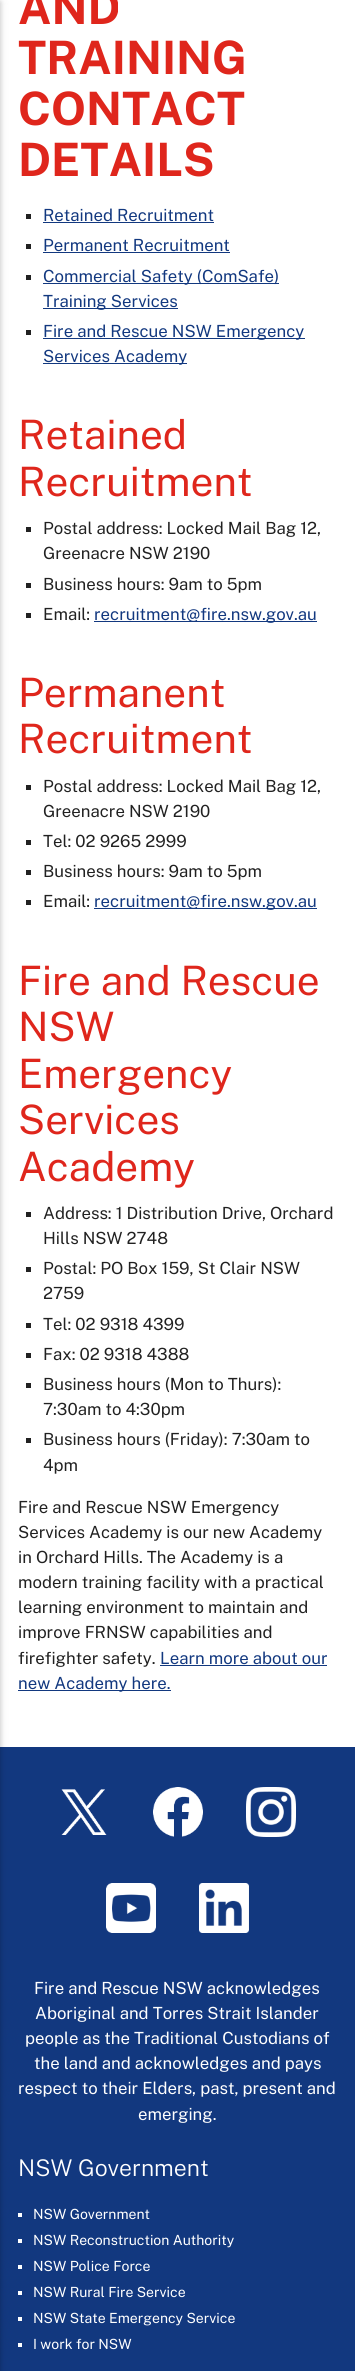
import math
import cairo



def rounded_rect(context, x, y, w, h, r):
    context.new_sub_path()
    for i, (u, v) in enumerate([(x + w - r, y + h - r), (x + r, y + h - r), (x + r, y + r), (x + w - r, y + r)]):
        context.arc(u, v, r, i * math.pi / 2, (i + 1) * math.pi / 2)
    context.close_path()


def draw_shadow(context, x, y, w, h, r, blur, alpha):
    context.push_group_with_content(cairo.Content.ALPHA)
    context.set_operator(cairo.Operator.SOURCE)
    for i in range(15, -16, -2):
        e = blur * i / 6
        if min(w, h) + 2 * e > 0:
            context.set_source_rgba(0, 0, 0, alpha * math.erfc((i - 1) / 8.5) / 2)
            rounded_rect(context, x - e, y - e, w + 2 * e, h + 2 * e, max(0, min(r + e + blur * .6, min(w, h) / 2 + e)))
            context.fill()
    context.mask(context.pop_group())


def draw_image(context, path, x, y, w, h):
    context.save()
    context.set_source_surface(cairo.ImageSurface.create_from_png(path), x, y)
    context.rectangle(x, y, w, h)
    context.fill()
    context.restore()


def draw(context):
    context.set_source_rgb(1, 1, 1)
    context.paint()
    context.set_source_rgb(18 / 255, 56 / 255, 127 / 255)
    context.rectangle(0, 1747, 355, 624)
    context.fill()
    context.set_source_rgb(0, 0, 0)
    draw_shadow(context, -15, 2, 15, 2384, 0, 5, 0.12)
    draw_shadow(context, -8, 2, 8, 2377, 0, 2.5, 0.16)
    context.set_source_rgb(33 / 255, 33 / 255, 33 / 255)
    context.rectangle(26, 214, 5, 5)
    context.fill()
    context.set_source_rgb(18 / 255, 56 / 255, 127 / 255)
    context.rectangle(43, 222, 171, 1)
    context.fill()
    context.set_source_rgb(33 / 255, 33 / 255, 33 / 255)
    context.rectangle(26, 244, 5, 5)
    context.fill()
    context.set_source_rgb(18 / 255, 56 / 255, 127 / 255)
    context.rectangle(43, 252, 187, 1)
    context.fill()
    context.set_source_rgb(33 / 255, 33 / 255, 33 / 255)
    context.rectangle(26, 275, 5, 5)
    context.fill()
    context.set_source_rgb(18 / 255, 56 / 255, 127 / 255)
    context.rectangle(43, 283, 236, 1)
    context.fill()
    context.rectangle(43, 308, 135, 1)
    context.fill()
    context.set_source_rgb(33 / 255, 33 / 255, 33 / 255)
    context.rectangle(26, 330, 5, 5)
    context.fill()
    context.set_source_rgb(18 / 255, 56 / 255, 127 / 255)
    context.rectangle(43, 338, 262, 1)
    context.fill()
    context.rectangle(43, 363, 144, 1)
    context.fill()
    context.set_source_rgb(33 / 255, 33 / 255, 33 / 255)
    context.rectangle(26, 527, 5, 5)
    context.fill()
    context.rectangle(26, 583, 5, 5)
    context.fill()
    context.rectangle(26, 613, 5, 5)
    context.fill()
    context.set_source_rgb(18 / 255, 56 / 255, 127 / 255)
    context.rectangle(94, 621, 223, 1)
    context.fill()
    context.set_source_rgb(33 / 255, 33 / 255, 33 / 255)
    context.rectangle(26, 785, 5, 5)
    context.fill()
    context.rectangle(26, 840, 5, 5)
    context.fill()
    context.rectangle(26, 870, 5, 5)
    context.fill()
    context.rectangle(26, 900, 5, 5)
    context.fill()
    context.set_source_rgb(18 / 255, 56 / 255, 127 / 255)
    context.rectangle(94, 908, 223, 1)
    context.fill()
    context.set_source_rgb(33 / 255, 33 / 255, 33 / 255)
    context.rectangle(26, 1212, 5, 5)
    context.fill()
    context.rectangle(26, 1267, 5, 5)
    context.fill()
    context.rectangle(26, 1323, 5, 5)
    context.fill()
    context.rectangle(26, 1353, 5, 5)
    context.fill()
    context.rectangle(26, 1383, 5, 5)
    context.fill()
    context.rectangle(26, 1438, 5, 5)
    context.fill()
    context.set_source_rgb(18 / 255, 56 / 255, 127 / 255)
    context.rectangle(160, 1665, 167, 1)
    context.fill()
    context.rectangle(18, 1690, 153, 1)
    context.fill()
    draw_image(context, "images/1.png", 61, 1789, 46, 46)
    draw_image(context, "images/2.png", 153, 1787, 50, 50)
    draw_image(context, "images/3.png", 246, 1787, 50, 50)
    draw_image(context, "images/4.png", 106, 1883, 50, 50)
    draw_image(context, "images/5.png", 199, 1883, 50, 50)
    context.set_source_rgb(1, 1, 1)
    context.rectangle(18, 2213, 4, 4)
    context.fill()
    context.rectangle(18, 2239, 4, 4)
    context.fill()
    context.rectangle(18, 2265, 4, 4)
    context.fill()
    context.rectangle(18, 2291, 4, 4)
    context.fill()
    context.rectangle(18, 2317, 4, 4)
    context.fill()
    context.rectangle(18, 2343, 4, 4)
    context.fill()
    context.select_font_face("Public Sans", cairo.FontSlant.NORMAL, cairo.FontWeight.BOLD)
    context.set_font_size(46)
    context.set_source_rgb(223 / 255, 38 / 255, 28 / 255)
    context.move_to(18, 24)
    context.show_text("AND")
    context.move_to(18, 74)
    context.show_text("TRAINING")
    context.move_to(18, 125)
    context.show_text("CONTACT")
    context.move_to(18, 176)
    context.show_text("DETAILS")
    context.select_font_face("Public Sans")
    context.set_font_size(16.75)
    context.set_source_rgb(18 / 255, 56 / 255, 127 / 255)
    context.move_to(43, 221)
    context.show_text("Retained Recruitment")
    context.move_to(43, 251)
    context.show_text("Permanent Recruitment")
    context.move_to(43, 282)
    context.show_text("Commercial Safety (ComSafe)")
    context.move_to(43, 307)
    context.show_text("Training Services")
    context.move_to(43, 337)
    context.show_text("Fire and Rescue NSW Emergency")
    context.move_to(43, 362)
    context.show_text("Services Academy")
    context.set_font_size(40.5)
    context.set_source_rgb(223 / 255, 38 / 255, 28 / 255)
    context.move_to(18, 449)
    context.show_text("Retained")
    context.move_to(18, 496)
    context.show_text("Recruitment")
    context.set_font_size(16.75)
    context.set_source_rgb(33 / 255, 33 / 255, 33 / 255)
    context.move_to(43, 534)
    context.show_text("Postal address: Locked Mail Bag 12,")
    context.move_to(43, 559)
    context.show_text("Greenacre NSW 2190")
    context.move_to(43, 590)
    context.show_text("Business hours: 9am to 5pm")
    context.move_to(43, 620)
    context.show_text("Email:")
    context.set_source_rgb(18 / 255, 56 / 255, 127 / 255)
    context.move_to(94, 620)
    context.show_text("recruitment@fire.nsw.gov.au")
    context.set_font_size(40.5)
    context.set_source_rgb(223 / 255, 38 / 255, 28 / 255)
    context.move_to(18, 707)
    context.show_text("Permanent")
    context.move_to(18, 753)
    context.show_text("Recruitment")
    context.set_font_size(16.75)
    context.set_source_rgb(33 / 255, 33 / 255, 33 / 255)
    context.move_to(43, 792)
    context.show_text("Postal address: Locked Mail Bag 12,")
    context.move_to(43, 817)
    context.show_text("Greenacre NSW 2190")
    context.move_to(43, 847)
    context.show_text("Tel: 02 9265 2999")
    context.move_to(43, 877)
    context.show_text("Business hours: 9am to 5pm")
    context.move_to(43, 907)
    context.show_text("Email:")
    context.set_source_rgb(18 / 255, 56 / 255, 127 / 255)
    context.move_to(94, 907)
    context.show_text("recruitment@fire.nsw.gov.au")
    context.set_font_size(40.5)
    context.set_source_rgb(223 / 255, 38 / 255, 28 / 255)
    context.move_to(18, 995)
    context.show_text("Fire and Rescue")
    context.move_to(18, 1041)
    context.show_text("NSW")
    context.move_to(18, 1088)
    context.show_text("Emergency")
    context.move_to(18, 1134)
    context.show_text("Services")
    context.move_to(18, 1181)
    context.show_text("Academy")
    context.set_font_size(16.75)
    context.set_source_rgb(33 / 255, 33 / 255, 33 / 255)
    context.move_to(43, 1219)
    context.show_text("Address: 1 Distribution Drive, Orchard")
    context.move_to(43, 1244)
    context.show_text("Hills NSW 2748")
    context.move_to(43, 1274)
    context.show_text("Postal: PO Box 159, St Clair NSW")
    context.move_to(43, 1299)
    context.show_text("2759")
    context.move_to(43, 1330)
    context.show_text("Tel: 02 9318 4399")
    context.move_to(43, 1360)
    context.show_text("Fax: 02 9318 4388")
    context.move_to(43, 1390)
    context.show_text("Business hours (Mon to Thurs):")
    context.move_to(43, 1415)
    context.show_text("7:30am to 4:30pm")
    context.move_to(43, 1445)
    context.show_text("Business hours (Friday): 7:30am to")
    context.move_to(43, 1471)
    context.show_text("4pm")
    context.move_to(18, 1513)
    context.show_text("Fire and Rescue NSW Emergency")
    context.move_to(18, 1538)
    context.show_text("Services Academy is our new Academy")
    context.move_to(18, 1563)
    context.show_text("in Orchard Hills. The Academy is a")
    context.move_to(18, 1588)
    context.show_text("modern training facility with a practical")
    context.move_to(18, 1613)
    context.show_text("learning environment to maintain and")
    context.move_to(18, 1638)
    context.show_text("improve FRNSW capabilities and")
    context.move_to(18, 1664)
    context.show_text("firefighter safety.")
    context.set_source_rgb(18 / 255, 56 / 255, 127 / 255)
    context.move_to(160, 1664)
    context.show_text("Learn more about our")
    context.move_to(18, 1689)
    context.show_text("new Academy here.")
    context.set_source_rgb(1, 1, 1)
    context.move_to(34, 1994)
    context.show_text("Fire and Rescue NSW acknowledges")
    context.move_to(35, 2019)
    context.show_text("Aboriginal and Torres Strait Islander")
    context.move_to(25, 2044)
    context.show_text("people as the Traditional Custodians of")
    context.move_to(34, 2069)
    context.show_text("the land and acknowledges and pays")
    context.move_to(18, 2094)
    context.show_text("respect to their Elders, past, present and")
    context.move_to(138, 2120)
    context.show_text("emerging.")
    context.select_font_face("Public Sans Light")
    context.set_font_size(23)
    context.move_to(18, 2176)
    context.show_text("NSW Government")
    context.select_font_face("Public Sans")
    context.set_font_size(14)
    context.move_to(33, 2219)
    context.show_text("NSW Government")
    context.move_to(33, 2245)
    context.show_text("NSW Reconstruction Authority")
    context.move_to(33, 2271)
    context.show_text("NSW Police Force")
    context.move_to(33, 2297)
    context.show_text("NSW Rural Fire Service")
    context.move_to(33, 2323)
    context.show_text("NSW State Emergency Service")
    context.move_to(33, 2349)
    context.show_text("I work for NSW")


surface = cairo.ImageSurface(cairo.Format.RGB24, 355, 2371)
context = cairo.Context(surface)
options = cairo.FontOptions()
options.set_hint_metrics(cairo.HintMetrics.OFF)
options.set_hint_style(cairo.HintStyle.NONE)
context.set_font_options(options)
context.set_miter_limit(4)
draw(context)
surface.write_to_png("out.png")
